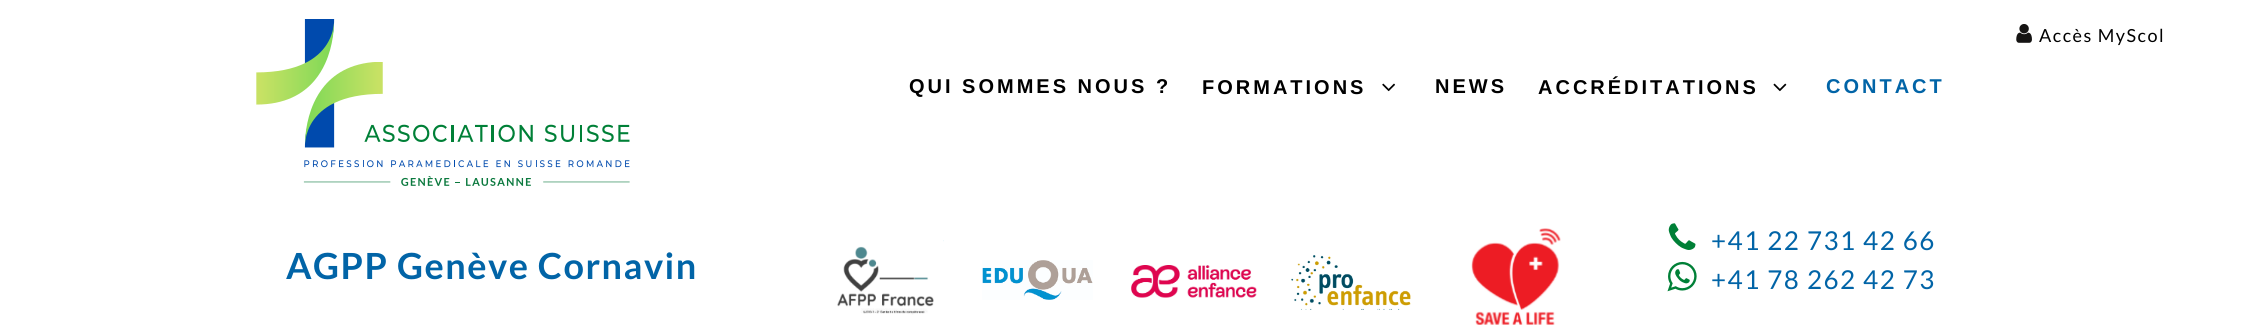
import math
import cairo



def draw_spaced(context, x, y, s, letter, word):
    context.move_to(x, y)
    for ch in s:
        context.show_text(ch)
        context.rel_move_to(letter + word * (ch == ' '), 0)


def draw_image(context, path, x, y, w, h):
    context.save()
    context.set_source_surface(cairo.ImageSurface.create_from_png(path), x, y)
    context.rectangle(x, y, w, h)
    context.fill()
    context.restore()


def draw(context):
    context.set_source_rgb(1, 1, 1)
    context.paint()
    draw_image(context, "images/1.png", 2016, 24, 16, 19)
    draw_image(context, "images/2.png", 256, 19, 374, 167)
    draw_image(context, "images/3.png", 1382, 83, 13, 9)
    draw_image(context, "images/4.png", 1773, 83, 14, 9)
    draw_image(context, "images/5.png", 837, 240, 107, 75)
    draw_image(context, "images/6.png", 982, 260, 111, 40)
    draw_image(context, "images/7.png", 1131, 265, 126, 33)
    draw_image(context, "images/8.png", 1291, 255, 120, 55)
    draw_image(context, "images/9.png", 1471, 228, 90, 97)
    draw_image(context, "images/10.png", 1668, 223, 28, 27)
    draw_image(context, "images/11.png", 1667, 261, 30, 31)
    context.select_font_face("Lato")
    context.set_font_size(18)
    context.set_source_rgb(0, 0, 0)
    draw_spaced(context, 2039, 42, "Accès MyScol", 1.5, 0)
    context.select_font_face("Liberation Sans", cairo.FontSlant.NORMAL, cairo.FontWeight.BOLD)
    context.set_font_size(20)
    draw_spaced(context, 909, 93, "QUI SOMMES NOUS ?", 3, 0)
    draw_spaced(context, 1202, 94, "FORMATIONS", 3, 0)
    draw_spaced(context, 1435, 93, "NEWS", 3, 0)
    draw_spaced(context, 1538, 94, "ACCRÉDITATIONS", 3, 0)
    context.set_source_rgb(1 / 255, 100 / 255, 167 / 255)
    draw_spaced(context, 1826, 93, "CONTACT", 3, 0)
    context.select_font_face("Lato", cairo.FontSlant.NORMAL, cairo.FontWeight.BOLD)
    context.set_font_size(36)
    draw_spaced(context, 286, 279, "AGPP Genève Cornavin", 1.5, 0)
    context.select_font_face("Lato")
    context.set_font_size(26)
    draw_spaced(context, 1711, 250, "+41 22 731 42 66", 1.5, 0)
    draw_spaced(context, 1711, 289, "+41 78 262 42 73", 1.5, 0)


surface = cairo.ImageSurface(cairo.Format.RGB24, 2246, 325)
context = cairo.Context(surface)
options = cairo.FontOptions()
options.set_hint_metrics(cairo.HintMetrics.OFF)
options.set_hint_style(cairo.HintStyle.NONE)
context.set_font_options(options)
context.set_miter_limit(4)
draw(context)
surface.write_to_png("out.png")
